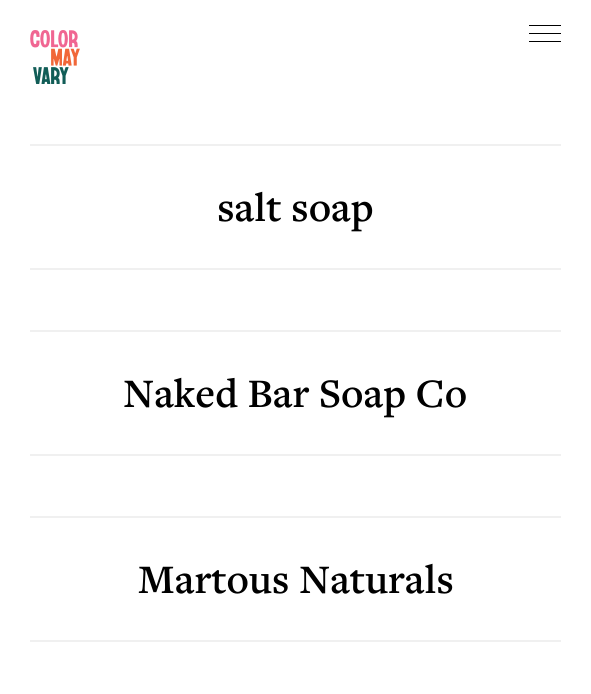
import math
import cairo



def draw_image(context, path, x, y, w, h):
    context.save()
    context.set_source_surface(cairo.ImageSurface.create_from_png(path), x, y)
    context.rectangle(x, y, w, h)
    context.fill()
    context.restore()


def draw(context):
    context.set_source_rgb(1, 1, 1)
    context.paint()
    draw_image(context, "images/1.png", 30, 30, 50, 54)
    context.set_source_rgb(0, 0, 0)
    context.rectangle(529, 25, 32, 1)
    context.fill()
    context.rectangle(529, 33, 32, 1)
    context.fill()
    context.rectangle(529, 41, 32, 1)
    context.fill()
    context.set_source_rgb(240 / 255, 240 / 255, 240 / 255)
    context.rectangle(30, 144, 531, 2)
    context.fill()
    context.rectangle(30, 268, 531, 2)
    context.fill()
    context.rectangle(30, 330, 531, 2)
    context.fill()
    context.rectangle(30, 454, 531, 2)
    context.fill()
    context.rectangle(30, 516, 531, 2)
    context.fill()
    context.rectangle(30, 640, 531, 2)
    context.fill()
    context.select_font_face("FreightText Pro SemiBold")
    context.set_font_size(42)
    context.set_source_rgb(0, 0, 0)
    context.move_to(217, 221)
    context.show_text("salt soap")
    context.move_to(123, 407)
    context.show_text("Naked Bar Soap Co")
    context.move_to(138, 593)
    context.show_text("Martous Naturals")


surface = cairo.ImageSurface(cairo.Format.RGB24, 591, 694)
context = cairo.Context(surface)
options = cairo.FontOptions()
options.set_hint_metrics(cairo.HintMetrics.OFF)
options.set_hint_style(cairo.HintStyle.NONE)
context.set_font_options(options)
context.set_miter_limit(4)
draw(context)
surface.write_to_png("out.png")
